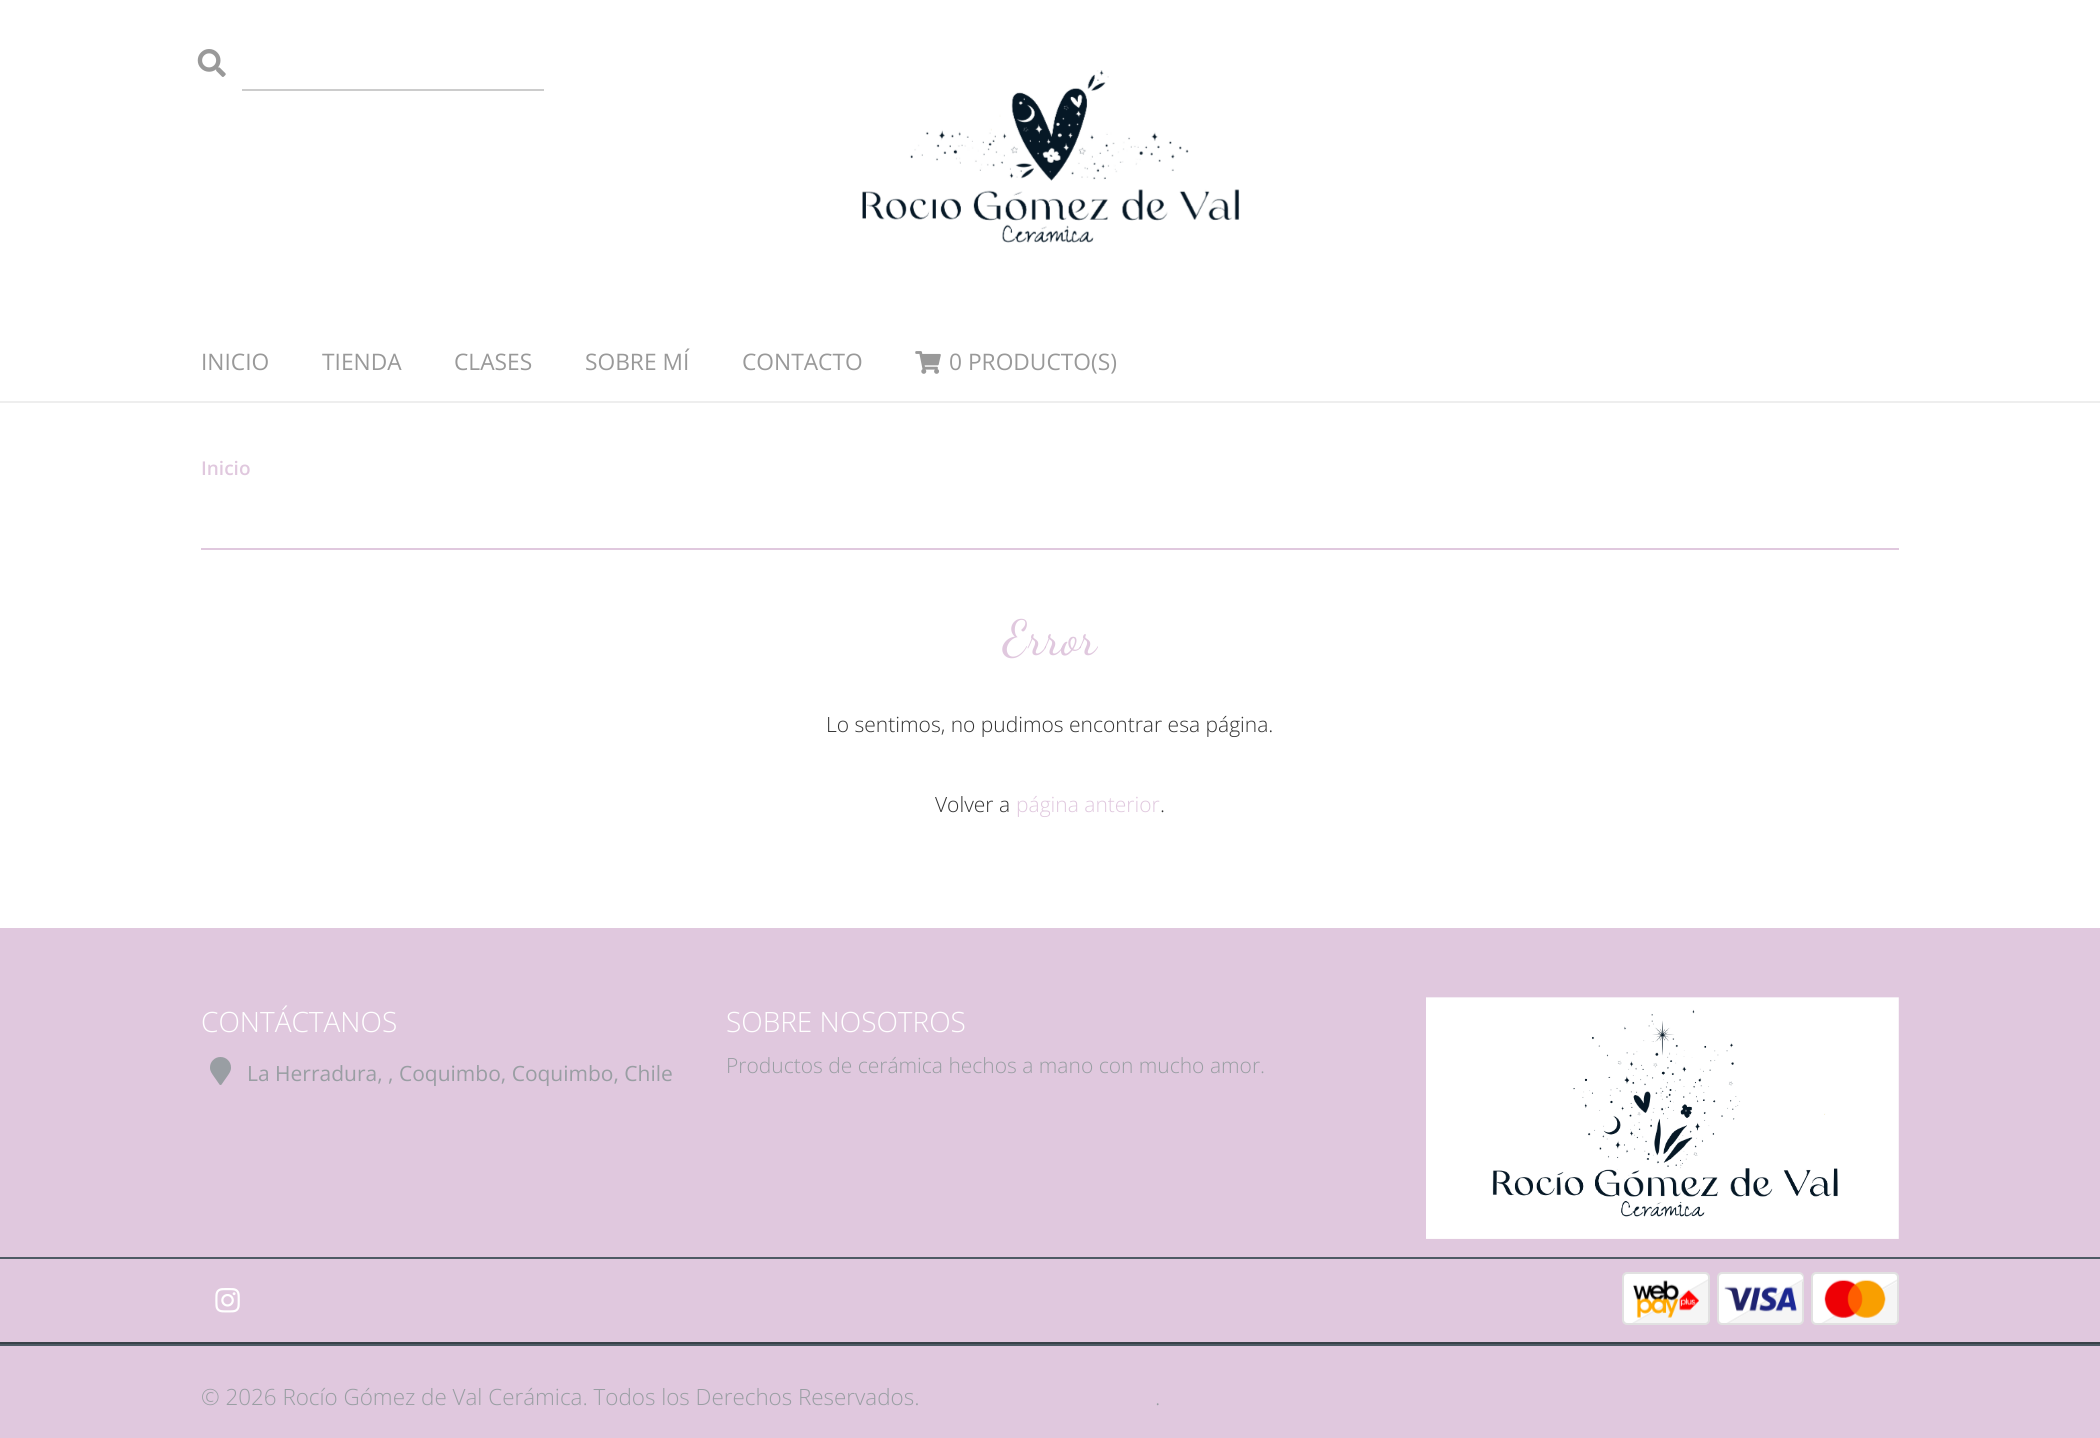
import math
import cairo



def rounded_rect(context, x, y, w, h, r):
    context.new_sub_path()
    for i, (u, v) in enumerate([(x + w - r, y + h - r), (x + r, y + h - r), (x + r, y + r), (x + w - r, y + r)]):
        context.arc(u, v, r, i * math.pi / 2, (i + 1) * math.pi / 2)
    context.close_path()


def draw_image(context, path, x, y, w, h):
    context.save()
    context.set_source_surface(cairo.ImageSurface.create_from_png(path), x, y)
    context.rectangle(x, y, w, h)
    context.fill()
    context.restore()


def draw(context):
    context.set_source_rgb(1, 1, 1)
    context.paint()
    draw_image(context, "images/1.png", 197, 49, 29, 28)
    context.set_source_rgb(204 / 255, 204 / 255, 204 / 255)
    context.rectangle(242, 89, 302, 2)
    context.fill()
    draw_image(context, "images/2.png", 862, 70, 378, 173)
    context.set_source_rgb(238 / 255, 238 / 255, 238 / 255)
    context.rectangle(0, 401, 2100, 2)
    context.fill()
    draw_image(context, "images/3.png", 915, 351, 26, 23)
    context.set_source_rgb(224 / 255, 200 / 255, 222 / 255)
    context.rectangle(201, 548, 1698, 2)
    context.fill()
    context.rectangle(0, 928, 2100, 510)
    context.fill()
    draw_image(context, "images/4.png", 210, 1057, 21, 28)
    draw_image(context, "images/5.png", 1426, 997, 473, 242)
    context.set_source_rgb(78 / 255, 90 / 255, 100 / 255)
    context.rectangle(0, 1257, 2100, 2)
    context.fill()
    context.set_source_rgb(57 / 255, 66 / 255, 73 / 255)
    context.rectangle(0, 1342, 2100, 2)
    context.fill()
    draw_image(context, "images/6.png", 215, 1288, 25, 25)
    context.set_source_rgb(245 / 255, 245 / 255, 245 / 255)
    rounded_rect(context, 1623, 1273, 86, 51, 4)
    context.fill_preserve()
    context.set_source_rgb(225 / 255, 225 / 255, 225 / 255)
    context.stroke()
    context.set_source_rgb(1, 1, 1)
    context.new_path()
    context.move_to(1628, 1274)
    context.line_to(1704, 1274)
    context.curve_to(1706, 1274, 1708, 1276, 1708, 1278)
    context.line_to(1708, 1281)
    context.line_to(1635, 1323)
    context.line_to(1628, 1323)
    context.curve_to(1626, 1323, 1624, 1321, 1624, 1319)
    context.line_to(1624, 1278)
    context.curve_to(1624, 1276, 1626, 1274, 1628, 1274)
    context.close_path()
    context.fill()
    context.save()
    rounded_rect(context, 1624, 1274, 84, 49, 4)
    context.clip()
    context.new_path()
    context.move_to(1655, 1110.5)
    context.line_to(1742, 1260.5)
    context.line_to(1592, 1347)
    context.line_to(1505, 1197)
    context.close_path()
    context.set_source_rgb(238 / 255, 238 / 255, 238 / 255)
    context.set_line_width(1.7)
    context.stroke()
    context.restore()
    draw_image(context, "images/7.png", 1633, 1280, 66, 38)
    context.set_source_rgb(245 / 255, 245 / 255, 245 / 255)
    rounded_rect(context, 1718, 1273, 85, 51, 4)
    context.fill_preserve()
    context.set_source_rgb(225 / 255, 225 / 255, 225 / 255)
    context.stroke()
    context.set_source_rgb(1, 1, 1)
    context.new_path()
    context.move_to(1723, 1274)
    context.line_to(1799, 1274)
    context.curve_to(1801, 1274, 1803, 1276, 1803, 1278)
    context.line_to(1803, 1281)
    context.line_to(1730, 1323)
    context.line_to(1723, 1323)
    context.curve_to(1721, 1323, 1719, 1321, 1719, 1319)
    context.line_to(1719, 1278)
    context.curve_to(1719, 1276, 1721, 1274, 1723, 1274)
    context.close_path()
    context.fill()
    context.save()
    rounded_rect(context, 1719, 1274, 84, 49, 4)
    context.clip()
    context.new_path()
    context.move_to(1750, 1110.5)
    context.line_to(1836.5, 1260.5)
    context.line_to(1686.5, 1347)
    context.line_to(1600, 1197)
    context.close_path()
    context.set_source_rgb(238 / 255, 238 / 255, 238 / 255)
    context.set_line_width(1.7)
    context.stroke()
    context.restore()
    draw_image(context, "images/8.png", 1724, 1286, 73, 26)
    context.set_source_rgb(245 / 255, 245 / 255, 245 / 255)
    rounded_rect(context, 1812, 1273, 86, 51, 4)
    context.fill_preserve()
    context.set_source_rgb(225 / 255, 225 / 255, 225 / 255)
    context.stroke()
    context.set_source_rgb(1, 1, 1)
    context.new_path()
    context.move_to(1817, 1274)
    context.line_to(1893, 1274)
    context.curve_to(1895, 1274, 1897, 1276, 1897, 1278)
    context.line_to(1897, 1282)
    context.line_to(1825, 1323)
    context.line_to(1817, 1323)
    context.curve_to(1815, 1323, 1813, 1321, 1813, 1319)
    context.line_to(1813, 1278)
    context.curve_to(1813, 1276, 1815, 1274, 1817, 1274)
    context.close_path()
    context.fill()
    context.save()
    rounded_rect(context, 1813, 1274, 84, 49, 4)
    context.clip()
    context.new_path()
    context.move_to(1844.5, 1110.5)
    context.line_to(1931.5, 1260.5)
    context.line_to(1781.5, 1347)
    context.line_to(1694.5, 1197)
    context.close_path()
    context.set_source_rgb(238 / 255, 238 / 255, 238 / 255)
    context.set_line_width(1.7)
    context.stroke()
    context.restore()
    draw_image(context, "images/9.png", 1824, 1279, 62, 39)
    context.set_source_rgb(78 / 255, 90 / 255, 100 / 255)
    context.rectangle(0, 1344, 2100, 2)
    context.fill()
    context.select_font_face("Open Sans")
    context.set_font_size(22.75)
    context.set_source_rgb(153 / 255, 153 / 255, 153 / 255)
    context.move_to(201, 370)
    context.show_text("INICIO")
    context.move_to(322, 370)
    context.show_text("TIENDA")
    context.move_to(454, 370)
    context.show_text("CLASES")
    context.move_to(585, 370)
    context.show_text("SOBRE MÍ")
    context.move_to(742, 370)
    context.show_text("CONTACTO")
    context.move_to(949, 370)
    context.show_text("0 PRODUCTO(S)")
    context.select_font_face("Open Sans SemiBold")
    context.set_font_size(19)
    context.set_source_rgb(224 / 255, 200 / 255, 222 / 255)
    context.move_to(201, 475)
    context.show_text("Inicio")
    context.select_font_face("Dancing Script")
    context.set_font_size(49)
    context.move_to(1003, 654)
    context.show_text("Error")
    context.select_font_face("Open Sans Light")
    context.set_font_size(21)
    context.set_source_rgb(51 / 255, 51 / 255, 51 / 255)
    context.move_to(826, 732)
    context.show_text("Lo sentimos, no pudimos encontrar esa página.")
    context.move_to(935, 812)
    context.show_text("Volver a")
    context.set_source_rgb(224 / 255, 200 / 255, 222 / 255)
    context.move_to(1016, 812)
    context.show_text("página anterior")
    context.set_source_rgb(51 / 255, 51 / 255, 51 / 255)
    context.move_to(1160, 812)
    context.show_text(".")
    context.set_font_size(28)
    context.set_source_rgb(1, 1, 1)
    context.move_to(201, 1032)
    context.show_text("CONTÁCTANOS")
    context.select_font_face("Open Sans")
    context.set_font_size(21)
    context.set_source_rgb(153 / 255, 158 / 255, 163 / 255)
    context.move_to(247, 1081)
    context.show_text("La Herradura, , Coquimbo, Coquimbo, Chile")
    context.select_font_face("Open Sans Light")
    context.set_font_size(28)
    context.set_source_rgb(1, 1, 1)
    context.move_to(726, 1032)
    context.show_text("SOBRE NOSOTROS")
    context.set_font_size(21)
    context.set_source_rgb(153 / 255, 158 / 255, 163 / 255)
    context.move_to(726, 1073)
    context.show_text("Productos de cerámica hechos a mano con mucho amor.")
    context.set_font_size(22.4)
    context.move_to(201, 1405)
    context.show_text("© 2026 Rocío Gómez de Val Cerámica. Todos los Derechos Reservados.")
    context.move_to(1155, 1405)
    context.show_text(".")


surface = cairo.ImageSurface(cairo.Format.RGB24, 2100, 1438)
context = cairo.Context(surface)
options = cairo.FontOptions()
options.set_hint_metrics(cairo.HintMetrics.OFF)
options.set_hint_style(cairo.HintStyle.NONE)
context.set_font_options(options)
context.set_miter_limit(4)
draw(context)
surface.write_to_png("out.png")
